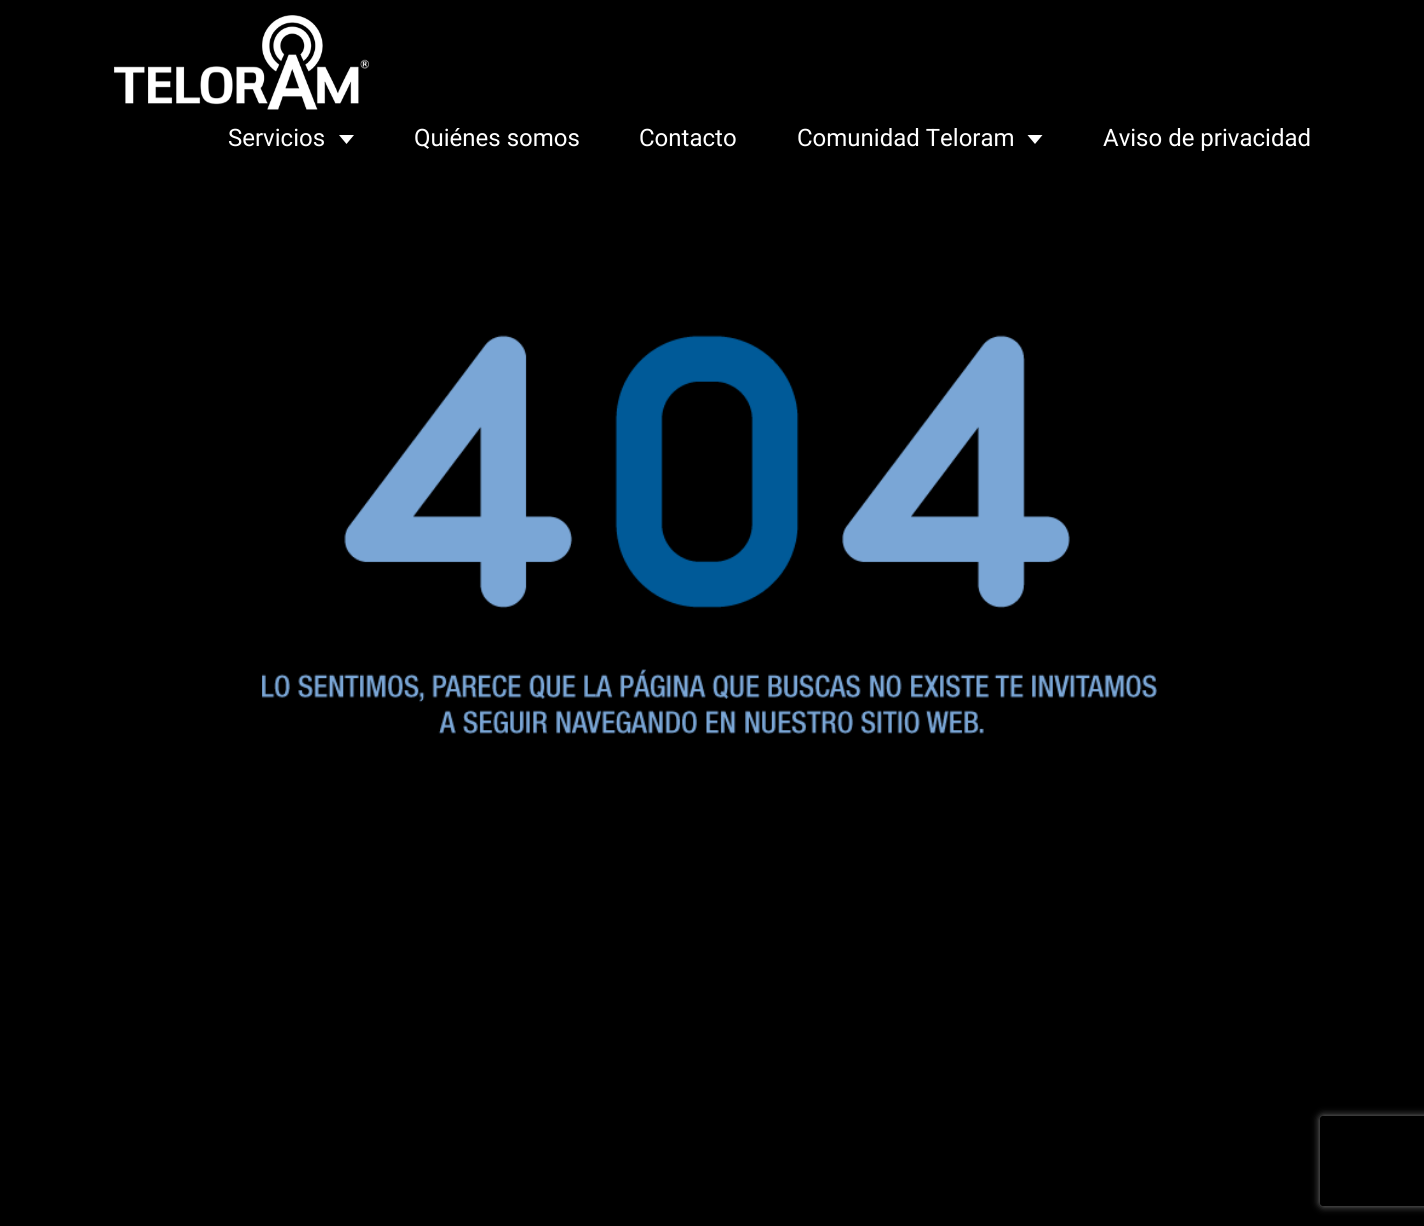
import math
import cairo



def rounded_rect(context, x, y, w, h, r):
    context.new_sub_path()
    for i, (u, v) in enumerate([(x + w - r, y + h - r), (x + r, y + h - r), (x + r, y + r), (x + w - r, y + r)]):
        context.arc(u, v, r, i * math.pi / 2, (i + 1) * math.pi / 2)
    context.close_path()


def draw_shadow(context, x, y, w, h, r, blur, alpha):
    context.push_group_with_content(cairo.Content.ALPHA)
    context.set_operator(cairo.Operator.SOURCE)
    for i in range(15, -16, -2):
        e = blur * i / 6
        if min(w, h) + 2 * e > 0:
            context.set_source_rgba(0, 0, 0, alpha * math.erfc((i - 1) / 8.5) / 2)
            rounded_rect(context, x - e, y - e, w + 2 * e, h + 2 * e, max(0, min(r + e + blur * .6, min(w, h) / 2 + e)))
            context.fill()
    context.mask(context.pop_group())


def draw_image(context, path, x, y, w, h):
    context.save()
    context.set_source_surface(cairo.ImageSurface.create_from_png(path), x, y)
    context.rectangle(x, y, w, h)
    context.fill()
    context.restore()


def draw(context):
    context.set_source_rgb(0, 0, 0)
    context.paint()
    draw_image(context, "images/1.png", 114, 15, 255, 95)
    context.set_source_rgb(1, 1, 1)
    context.new_path()
    context.move_to(339, 135)
    context.line_to(354, 135)
    context.line_to(346.5, 144)
    context.close_path()
    context.fill()
    context.new_path()
    context.move_to(1027.5, 135)
    context.line_to(1042.5, 135)
    context.line_to(1035, 144)
    context.close_path()
    context.fill()
    draw_image(context, "images/2.png", 262, 335, 896, 399)
    context.save()
    context.set_fill_rule(cairo.FillRule.EVEN_ODD)
    context.new_path()
    context.move_to(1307, 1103)
    context.line_to(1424, 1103)
    context.line_to(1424, 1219)
    context.line_to(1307, 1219)
    context.close_path()
    context.move_to(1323, 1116)
    context.line_to(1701, 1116)
    context.curve_to(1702.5, 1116, 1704, 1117.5, 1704, 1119)
    context.line_to(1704, 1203)
    context.curve_to(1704, 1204.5, 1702.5, 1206, 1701, 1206)
    context.line_to(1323, 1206)
    context.curve_to(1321.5, 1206, 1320, 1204.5, 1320, 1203)
    context.line_to(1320, 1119)
    context.curve_to(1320, 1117.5, 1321.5, 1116, 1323, 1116)
    context.close_path()
    context.clip()
    context.set_source_rgb(128 / 255, 128 / 255, 128 / 255)
    draw_shadow(context, 1320, 1116, 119, 90, 3, 4, 1)
    context.restore()
    context.select_font_face("Roboto")
    context.set_font_size(24)
    context.move_to(228, 146)
    context.show_text("Servicios")
    context.move_to(414, 146)
    context.show_text("Quiénes somos")
    context.move_to(639, 146)
    context.show_text("Contacto")
    context.move_to(797, 146)
    context.show_text("Comunidad Teloram")
    context.move_to(1103, 146)
    context.show_text("Aviso de privacidad")


surface = cairo.ImageSurface(cairo.Format.RGB24, 1424, 1226)
context = cairo.Context(surface)
options = cairo.FontOptions()
options.set_hint_metrics(cairo.HintMetrics.OFF)
options.set_hint_style(cairo.HintStyle.NONE)
context.set_font_options(options)
context.set_miter_limit(4)
draw(context)
surface.write_to_png("out.png")
